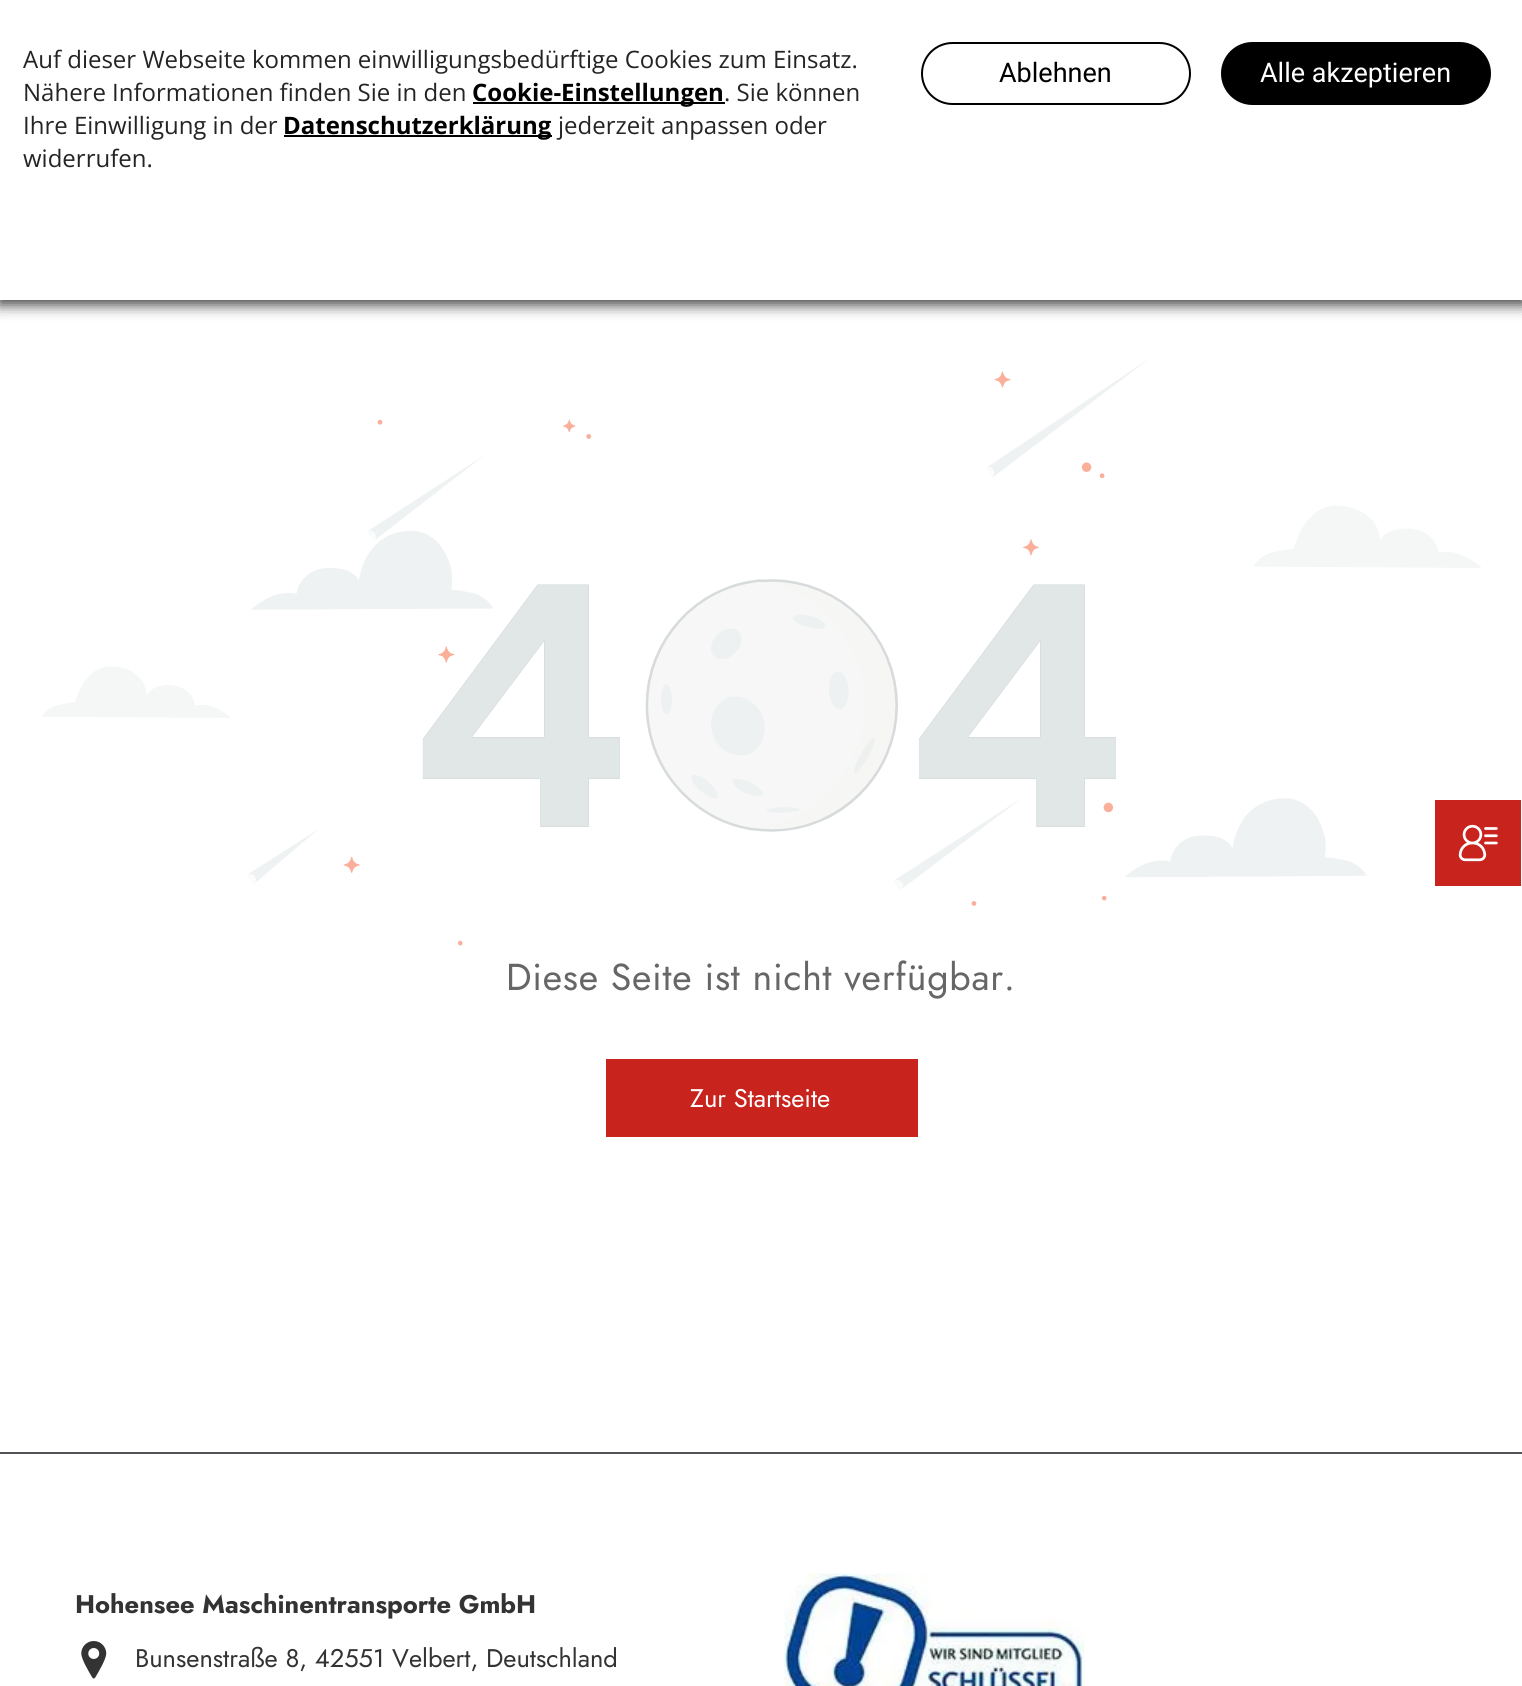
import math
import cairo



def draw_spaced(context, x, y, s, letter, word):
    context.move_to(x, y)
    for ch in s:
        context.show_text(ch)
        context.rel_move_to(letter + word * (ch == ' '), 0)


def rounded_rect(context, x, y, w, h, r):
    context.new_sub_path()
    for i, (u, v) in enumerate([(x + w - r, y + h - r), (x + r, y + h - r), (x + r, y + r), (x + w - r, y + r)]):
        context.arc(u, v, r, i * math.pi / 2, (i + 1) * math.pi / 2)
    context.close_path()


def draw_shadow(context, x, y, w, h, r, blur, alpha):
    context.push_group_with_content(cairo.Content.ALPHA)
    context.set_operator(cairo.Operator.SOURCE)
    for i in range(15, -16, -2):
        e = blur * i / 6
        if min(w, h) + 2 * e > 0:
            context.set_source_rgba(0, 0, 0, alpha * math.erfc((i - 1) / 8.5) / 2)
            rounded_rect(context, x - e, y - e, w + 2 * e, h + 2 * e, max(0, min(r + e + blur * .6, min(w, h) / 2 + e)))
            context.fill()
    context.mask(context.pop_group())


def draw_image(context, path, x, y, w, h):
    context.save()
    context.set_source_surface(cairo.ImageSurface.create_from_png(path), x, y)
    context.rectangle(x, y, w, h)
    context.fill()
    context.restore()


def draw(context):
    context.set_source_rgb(1, 1, 1)
    context.paint()
    context.set_source_rgb(0, 0, 0)
    draw_shadow(context, -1, 2, 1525, 303, 0, 7, 0.75)
    context.set_source_rgb(1, 1, 1)
    context.rectangle(0, 0, 1522, 300)
    context.fill()
    context.set_source_rgb(0, 0, 0)
    context.rectangle(473, 102, 252, 2)
    context.fill()
    context.rectangle(284, 135, 268, 2)
    context.fill()
    rounded_rect(context, 922, 43, 268, 61, 30.5)
    context.stroke()
    rounded_rect(context, 1222, 43, 268, 61, 30.5)
    context.fill_preserve()
    context.stroke()
    draw_image(context, "images/2.png", 42, 358, 1439, 588)
    context.set_source_rgb(201 / 255, 35 / 255, 30 / 255)
    context.rectangle(1435, 800, 86, 86)
    context.fill()
    draw_image(context, "images/1.png", 1458, 824, 40, 38)
    context.rectangle(606, 1059, 312, 78)
    context.fill()
    context.set_source_rgb(82 / 255, 83 / 255, 87 / 255)
    context.rectangle(0, 1452, 1522, 2)
    context.fill()
    draw_image(context, "images/3.png", 81, 1641, 26, 38)
    draw_image(context, "images/4.png", 784, 1573, 301, 113)
    context.select_font_face("Open Sans")
    context.set_font_size(24)
    context.set_source_rgb(36 / 255, 36 / 255, 36 / 255)
    context.move_to(23, 68)
    context.show_text("Auf dieser Webseite kommen einwilligungsbedürftige Cookies zum Einsatz.")
    context.move_to(23, 101)
    context.show_text("Nähere Informationen finden Sie in den")
    context.select_font_face("Open Sans", cairo.FontSlant.NORMAL, cairo.FontWeight.BOLD)
    context.set_source_rgb(0, 0, 0)
    context.move_to(472, 101)
    context.show_text("Cookie-Einstellungen")
    context.select_font_face("Open Sans")
    context.set_source_rgb(36 / 255, 36 / 255, 36 / 255)
    context.move_to(724, 101)
    context.show_text(". Sie können")
    context.move_to(23, 134)
    context.show_text("Ihre Einwilligung in der")
    context.select_font_face("Open Sans", cairo.FontSlant.NORMAL, cairo.FontWeight.BOLD)
    context.set_source_rgb(0, 0, 0)
    context.move_to(283, 134)
    context.show_text("Datenschutzerklärung")
    context.select_font_face("Open Sans")
    context.set_source_rgb(36 / 255, 36 / 255, 36 / 255)
    context.move_to(558, 134)
    context.show_text("jederzeit anpassen oder")
    context.move_to(23, 167)
    context.show_text("widerrufen.")
    context.select_font_face("Roboto")
    context.set_font_size(27)
    context.set_source_rgb(0, 0, 0)
    context.move_to(999, 82)
    context.show_text("Ablehnen")
    context.set_source_rgb(1, 1, 1)
    context.move_to(1260, 82)
    context.show_text("Alle akzeptieren")
    context.select_font_face("Jost")
    context.set_font_size(37.5)
    context.set_source_rgb(102 / 255, 102 / 255, 102 / 255)
    draw_spaced(context, 506, 990, "Diese Seite ist nicht verfügbar.", 0.75, 0)
    context.set_font_size(25.5)
    context.set_source_rgb(1, 1, 1)
    context.move_to(690, 1107)
    context.show_text("Zur Startseite")
    context.select_font_face("Jost", cairo.FontSlant.NORMAL, cairo.FontWeight.BOLD)
    context.set_source_rgb(51 / 255, 51 / 255, 51 / 255)
    context.move_to(75, 1613)
    context.show_text("Hohensee Maschinentransporte GmbH")
    context.select_font_face("Jost")
    context.move_to(135, 1667)
    context.show_text("Bunsenstraße 8, 42551 Velbert, Deutschland")


surface = cairo.ImageSurface(cairo.Format.RGB24, 1522, 1686)
context = cairo.Context(surface)
options = cairo.FontOptions()
options.set_hint_metrics(cairo.HintMetrics.OFF)
options.set_hint_style(cairo.HintStyle.NONE)
context.set_font_options(options)
context.set_miter_limit(4)
draw(context)
surface.write_to_png("out.png")
